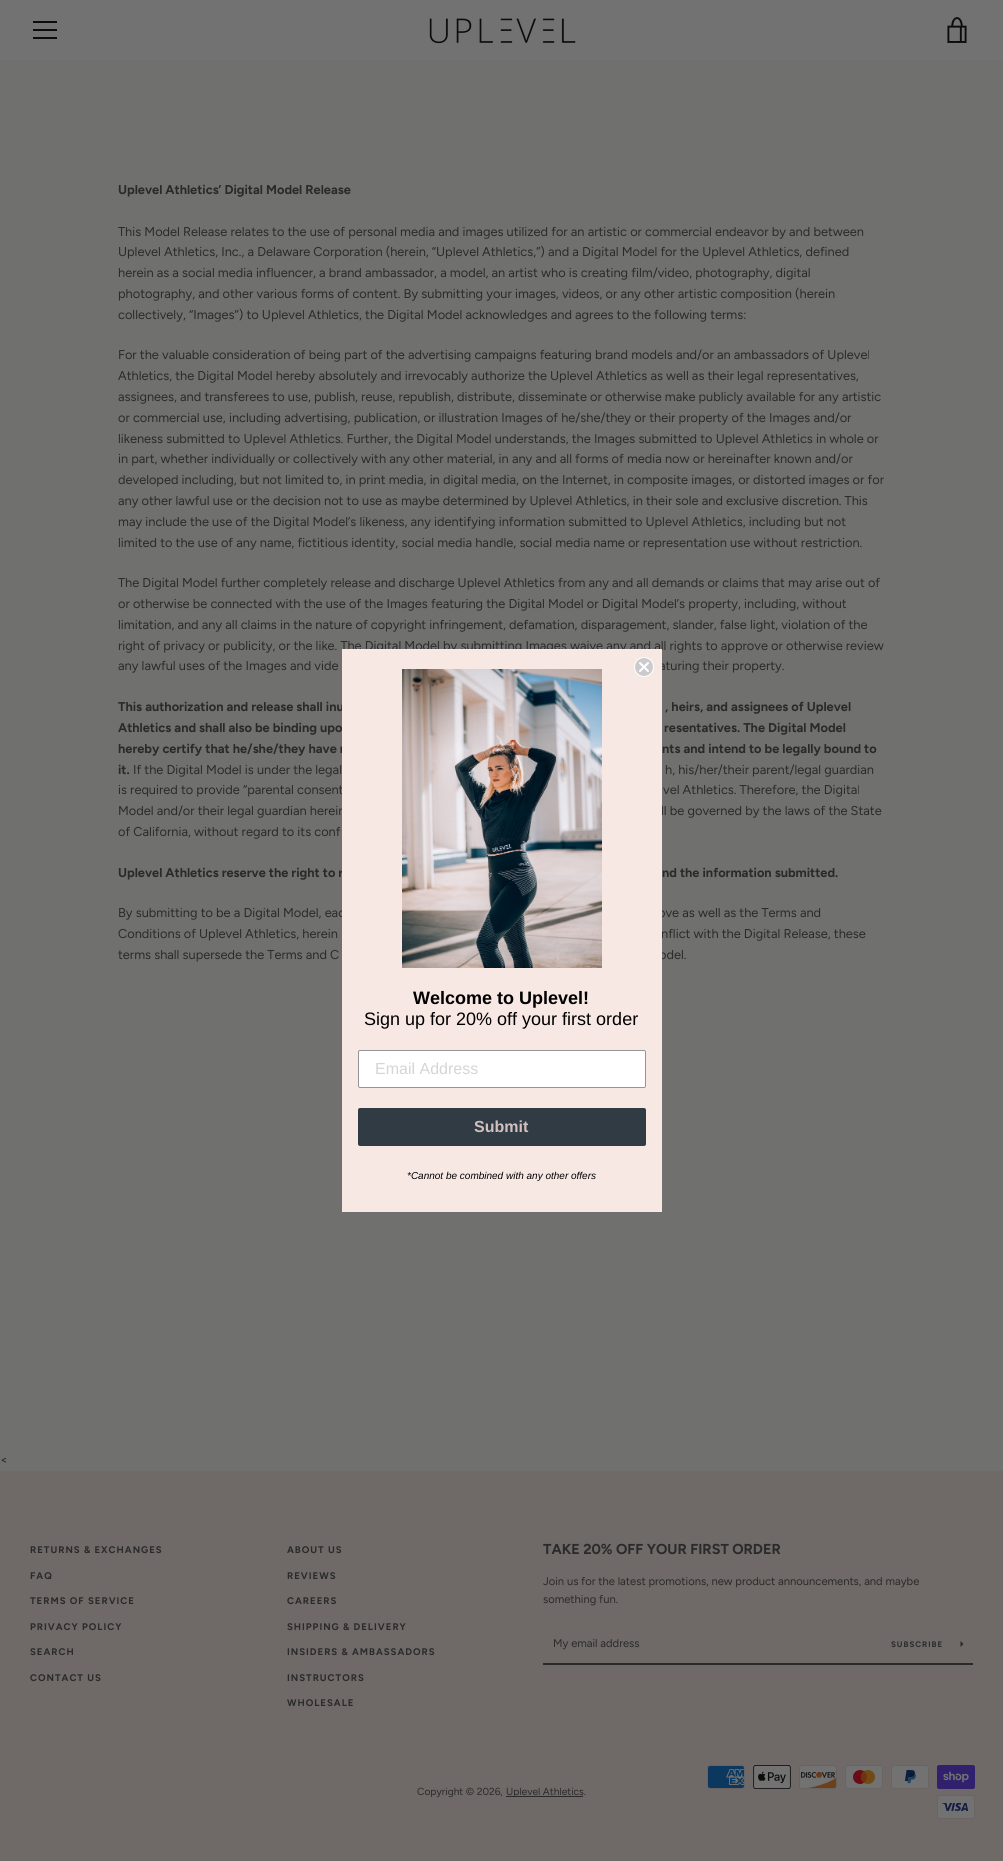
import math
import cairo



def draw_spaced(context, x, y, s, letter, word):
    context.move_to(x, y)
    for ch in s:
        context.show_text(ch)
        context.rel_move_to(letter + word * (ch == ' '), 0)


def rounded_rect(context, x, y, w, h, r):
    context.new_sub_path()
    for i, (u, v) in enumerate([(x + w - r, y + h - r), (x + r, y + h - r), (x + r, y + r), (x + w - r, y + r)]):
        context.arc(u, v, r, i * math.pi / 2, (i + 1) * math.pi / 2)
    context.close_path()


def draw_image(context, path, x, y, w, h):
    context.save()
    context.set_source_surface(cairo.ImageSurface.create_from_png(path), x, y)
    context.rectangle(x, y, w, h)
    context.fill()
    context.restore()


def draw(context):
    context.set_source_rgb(111 / 255, 105 / 255, 103 / 255)
    context.paint()
    context.set_source_rgb(112 / 255, 112 / 255, 110 / 255)
    context.rectangle(0, 60, 1003, 1411)
    context.fill()
    context.set_source_rgb(114 / 255, 114 / 255, 114 / 255)
    context.rectangle(0, 0, 1003, 60)
    context.fill()
    context.set_source_rgb(12 / 255, 12 / 255, 12 / 255)
    context.rectangle(33, 21, 24, 2)
    context.fill()
    context.rectangle(33, 29, 24, 2)
    context.fill()
    context.rectangle(33, 37, 24, 2)
    context.fill()
    draw_image(context, "images/1.png", 429, 18, 147, 26)
    draw_image(context, "images/2.png", 947, 17, 20, 26)
    context.set_source_rgb(42 / 255, 42 / 255, 42 / 255)
    context.rectangle(543, 1663, 430, 2)
    context.fill()
    context.new_path()
    context.move_to(963.5, 1644)
    context.line_to(960.5, 1647)
    context.line_to(960.5, 1641)
    context.close_path()
    context.fill()
    context.rectangle(506, 1796, 77, 1)
    context.fill()
    draw_image(context, "images/3.png", 707, 1765, 38, 24)
    draw_image(context, "images/4.png", 753, 1765, 38, 24)
    draw_image(context, "images/5.png", 799, 1765, 38, 24)
    draw_image(context, "images/6.png", 845, 1765, 38, 24)
    draw_image(context, "images/7.png", 891, 1765, 38, 24)
    draw_image(context, "images/8.png", 937, 1765, 38, 24)
    draw_image(context, "images/9.png", 937, 1795, 38, 24)
    context.select_font_face("Figtree", cairo.FontSlant.NORMAL, cairo.FontWeight.BOLD)
    context.set_font_size(12.8)
    context.move_to(118, 194)
    context.show_text("Uplevel Athletics’ Digital Model Release")
    context.select_font_face("Figtree")
    context.move_to(118, 236)
    context.show_text("This Model Release relates to the use of personal media and images utilized for an artistic or commercial endeavor by and between")
    context.move_to(118, 256)
    context.show_text("Uplevel Athletics, Inc., a Delaware Corporation (herein, “Uplevel Athletics,”) and a Digital Model for the Uplevel Athletics, defined")
    context.move_to(118, 277)
    context.show_text("herein as a social media influencer, a brand ambassador, a model, an artist who is creating film/video, photography, digital")
    context.move_to(118, 298)
    context.show_text("photography, and other various forms of content. By submitting your images, videos, or any other artistic composition (herein")
    context.move_to(118, 319)
    context.show_text("collectively, “Images”) to Uplevel Athletics, the Digital Model acknowledges and agrees to the following terms:")
    context.move_to(118, 359)
    context.show_text("For the valuable consideration of being part of the advertising campaigns featuring brand models and/or an ambassadors of Uplevel")
    context.move_to(118, 380)
    context.show_text("Athletics, the Digital Model hereby absolutely and irrevocably authorize the Uplevel Athletics as well as their legal representatives,")
    context.move_to(118, 401)
    context.show_text("assignees, and transferees to use, publish, reuse, republish, distribute, disseminate or otherwise make publicly available for any artistic")
    context.move_to(118, 422)
    context.show_text("or commercial use, including advertising, publication, or illustration Images of he/she/they or their property of the Images and/or")
    context.move_to(118, 443)
    context.show_text("likeness submitted to Uplevel Athletics. Further, the Digital Model understands, the Images submitted to Uplevel Athletics in whole or")
    context.move_to(118, 463)
    context.show_text("in part, whether individually or collectively with any other material, in any and all forms of media now or hereinafter known and/or")
    context.move_to(118, 484)
    context.show_text("developed including, but not limited to, in print media, in digital media, on the Internet, in composite images, or distorted images or for")
    context.move_to(118, 505)
    context.show_text("any other lawful use or the decision not to use as maybe determined by Uplevel Athletics, in their sole and exclusive discretion. This")
    context.move_to(118, 526)
    context.show_text("may include the use of the Digital Model’s likeness, any identifying information submitted to Uplevel Athletics, including but not")
    context.move_to(118, 547)
    context.show_text("limited to the use of any name, fictitious identity, social media handle, social media name or representation use without restriction.")
    context.move_to(118, 587)
    context.show_text("The Digital Model further completely release and discharge Uplevel Athletics from any and all demands or claims that may arise out of")
    context.move_to(118, 608)
    context.show_text("or otherwise be connected with the use of the Images featuring the Digital Model or Digital Model’s property, including, without")
    context.move_to(118, 629)
    context.show_text("limitation, and any all claims in the nature of copyright infringement, defamation, disparagement, slander, false light, violation of the")
    context.move_to(118, 650)
    context.show_text("right of privacy or publicity, or the like. The Digital Model by submitting Images waive any and all rights to approve or otherwise review")
    context.move_to(118, 670)
    context.show_text("any lawful uses of the Images and vide")
    context.move_to(659, 670)
    context.show_text("aturing their property.")
    context.select_font_face("Figtree", cairo.FontSlant.NORMAL, cairo.FontWeight.BOLD)
    context.move_to(118, 711)
    context.show_text("This authorization and release shall inu")
    context.move_to(665, 711)
    context.show_text(", heirs, and assignees of Uplevel")
    context.move_to(118, 732)
    context.show_text("Athletics and shall also be binding upo")
    context.move_to(664, 732)
    context.show_text("resentatives. The Digital Model")
    context.move_to(118, 753)
    context.show_text("hereby certify that he/she/they have r")
    context.move_to(662, 753)
    context.show_text("nts and intend to be legally bound to")
    context.move_to(118, 774)
    context.show_text("it.")
    context.select_font_face("Figtree")
    context.move_to(133, 774)
    context.show_text("If the Digital Model is under the legal")
    context.move_to(665, 774)
    context.show_text("h, his/her/their parent/legal guardian")
    context.move_to(118, 794)
    context.show_text("is required to provide “parental consent")
    context.move_to(663, 794)
    context.show_text("vel Athletics. Therefore, the Digital")
    context.move_to(118, 815)
    context.show_text("Model and/or their legal guardian herein")
    context.move_to(661, 815)
    context.show_text("ll be governed by the laws of the State")
    context.move_to(118, 836)
    context.show_text("of California, without regard to its conf")
    context.select_font_face("Figtree", cairo.FontSlant.NORMAL, cairo.FontWeight.BOLD)
    context.move_to(118, 877)
    context.show_text("Uplevel Athletics reserve the right to r")
    context.move_to(662, 877)
    context.show_text("nd the information submitted.")
    context.select_font_face("Figtree")
    context.move_to(118, 917)
    context.show_text("By submitting to be a Digital Model, eac")
    context.move_to(658, 917)
    context.show_text("ove as well as the Terms and")
    context.move_to(118, 938)
    context.show_text("Conditions of Uplevel Athletics, herein")
    context.move_to(661, 938)
    context.show_text("nflict with the Digital Release, these")
    context.move_to(118, 959)
    context.show_text("terms shall supersede the Terms and C")
    context.move_to(659, 959)
    context.show_text("odel.")
    context.select_font_face("Figtree", cairo.FontSlant.NORMAL, cairo.FontWeight.BOLD)
    context.set_font_size(9.6)
    draw_spaced(context, 30, 1553, "RETURNS & EXCHANGES", 1, 0)
    draw_spaced(context, 30, 1579, "FAQ", 1, 0)
    draw_spaced(context, 30, 1604, "TERMS OF SERVICE", 1, 0)
    draw_spaced(context, 30, 1630, "PRIVACY POLICY", 1, 0)
    draw_spaced(context, 30, 1655, "SEARCH", 1, 0)
    draw_spaced(context, 30, 1681, "CONTACT US", 1, 0)
    draw_spaced(context, 287, 1553, "ABOUT US", 1, 0)
    draw_spaced(context, 287, 1579, "REVIEWS", 1, 0)
    draw_spaced(context, 287, 1604, "CAREERS", 1, 0)
    draw_spaced(context, 287, 1630, "SHIPPING & DELIVERY", 1, 0)
    draw_spaced(context, 287, 1655, "INSIDERS & AMBASSADORS", 1, 0)
    draw_spaced(context, 287, 1681, "INSTRUCTORS", 1, 0)
    draw_spaced(context, 287, 1706, "WHOLESALE", 1, 0)
    context.set_font_size(14.4)
    context.move_to(543, 1554)
    context.show_text("TAKE 20% OFF YOUR FIRST ORDER")
    context.select_font_face("Figtree")
    context.set_font_size(11.2)
    context.move_to(543, 1585)
    context.show_text("Join us for the latest promotions, new product announcements, and maybe")
    context.move_to(543, 1603)
    context.show_text("something fun.")
    context.move_to(553, 1647)
    context.show_text("My email address")
    context.select_font_face("Figtree", cairo.FontSlant.NORMAL, cairo.FontWeight.BOLD)
    context.set_font_size(8)
    draw_spaced(context, 891, 1647, "SUBSCRIBE", 1, 0)
    context.select_font_face("Figtree")
    context.set_font_size(10.25)
    context.move_to(417, 1795)
    context.show_text("Copyright © 2026,")
    context.move_to(506, 1795)
    context.show_text("Uplevel Athletics.")
    context.set_source_rgb(247 / 255, 232 / 255, 228 / 255)
    context.rectangle(342, 649, 320, 563)
    context.fill()
    draw_image(context, "images/10.png", 634, 657, 20, 20)
    draw_image(context, "images/11.png", 402, 669, 200, 299)
    context.select_font_face("Liberation Sans", cairo.FontSlant.NORMAL, cairo.FontWeight.BOLD)
    context.set_font_size(18)
    context.set_source_rgb(0, 0, 0)
    context.move_to(413, 1004)
    context.show_text("Welcome to Uplevel!")
    context.select_font_face("Liberation Sans")
    context.move_to(364, 1025)
    context.show_text("Sign up for 20% off your first order")
    context.set_source_rgb(1, 1, 1)
    rounded_rect(context, 358.5, 1050.5, 287, 37, 1.5)
    context.fill_preserve()
    context.set_source_rgb(148 / 255, 149 / 255, 150 / 255)
    context.set_line_width(1)
    context.stroke()
    context.set_font_size(16)
    context.set_source_rgb(212 / 255, 213 / 255, 213 / 255)
    context.move_to(375, 1074)
    context.show_text("Email Address")
    context.set_source_rgb(48 / 255, 59 / 255, 67 / 255)
    rounded_rect(context, 358, 1108, 288, 38, 2)
    context.fill()
    context.select_font_face("Liberation Sans", cairo.FontSlant.NORMAL, cairo.FontWeight.BOLD)
    context.set_source_rgb(211 / 255, 193 / 255, 191 / 255)
    context.move_to(474, 1132)
    context.show_text("Submit")
    context.select_font_face("Liberation Sans", cairo.FontSlant.ITALIC)
    context.set_font_size(10)
    context.set_source_rgb(0, 0, 0)
    context.move_to(407, 1179)
    context.show_text("*Cannot be combined with any other offers")
    context.select_font_face("Figtree")
    context.set_font_size(12.8)
    context.set_source_rgb(42 / 255, 42 / 255, 42 / 255)
    context.move_to(0, 1464)
    context.show_text("<")


surface = cairo.ImageSurface(cairo.Format.RGB24, 1003, 1861)
context = cairo.Context(surface)
options = cairo.FontOptions()
options.set_hint_metrics(cairo.HintMetrics.OFF)
options.set_hint_style(cairo.HintStyle.NONE)
context.set_font_options(options)
context.set_miter_limit(4)
draw(context)
surface.write_to_png("out.png")
